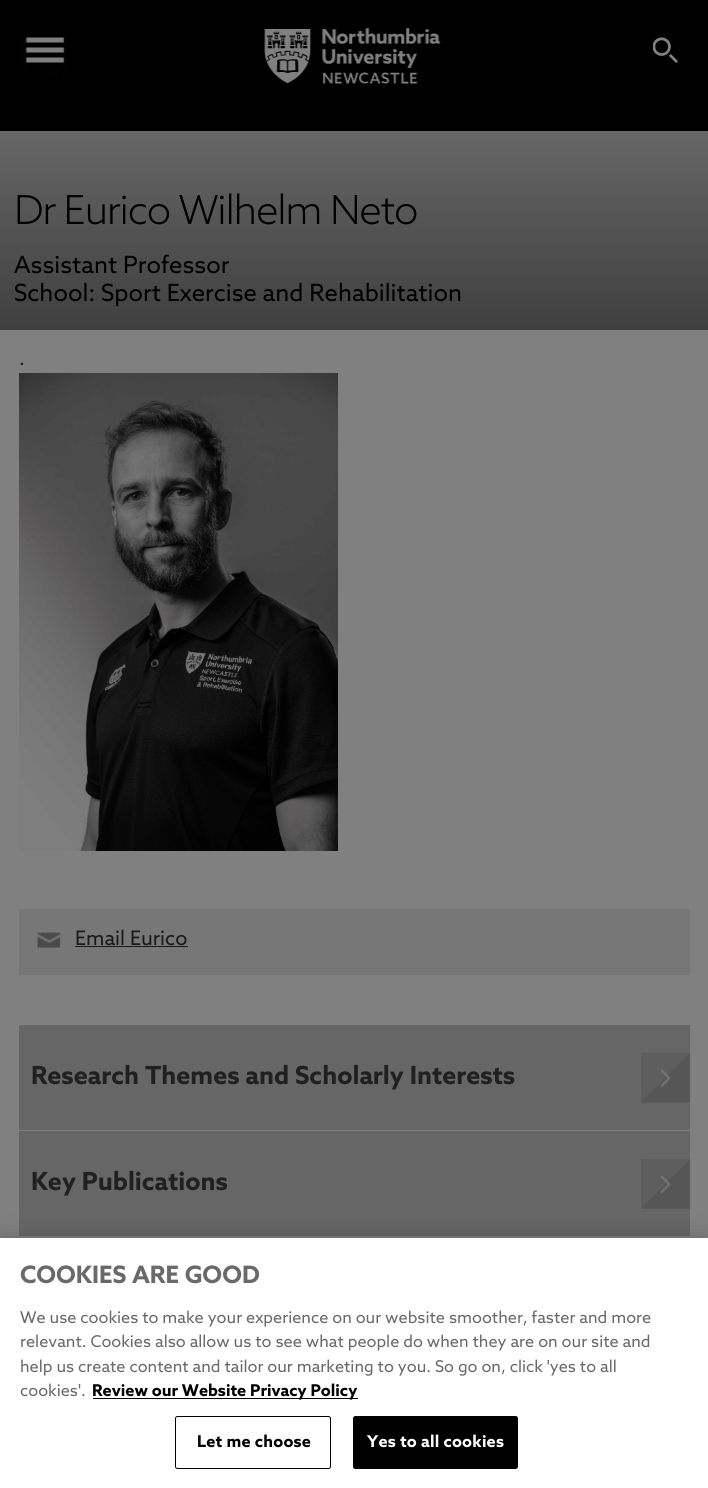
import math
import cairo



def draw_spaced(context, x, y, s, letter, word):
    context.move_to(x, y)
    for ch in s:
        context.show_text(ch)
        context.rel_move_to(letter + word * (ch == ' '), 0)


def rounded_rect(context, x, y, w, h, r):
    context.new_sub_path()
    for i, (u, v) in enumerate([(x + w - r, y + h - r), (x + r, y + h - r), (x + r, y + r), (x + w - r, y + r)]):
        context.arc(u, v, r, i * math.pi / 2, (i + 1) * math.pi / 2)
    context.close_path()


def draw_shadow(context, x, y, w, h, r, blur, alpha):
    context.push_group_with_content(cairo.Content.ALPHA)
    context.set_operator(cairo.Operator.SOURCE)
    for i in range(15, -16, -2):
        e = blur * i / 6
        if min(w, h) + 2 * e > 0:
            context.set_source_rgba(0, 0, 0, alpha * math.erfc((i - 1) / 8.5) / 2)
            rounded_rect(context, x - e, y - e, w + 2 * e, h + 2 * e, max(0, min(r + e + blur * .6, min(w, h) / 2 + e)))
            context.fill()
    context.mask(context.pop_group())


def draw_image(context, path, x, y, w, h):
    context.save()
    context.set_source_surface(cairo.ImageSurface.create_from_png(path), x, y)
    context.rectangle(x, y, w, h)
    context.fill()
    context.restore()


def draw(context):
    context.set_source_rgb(0, 0, 0)
    context.paint()
    draw_image(context, "images/1.png", 22, 27, 47, 48)
    draw_image(context, "images/2.png", 264, 28, 177, 56)
    draw_image(context, "images/3.png", 653, 37, 25, 26)
    gradient = cairo.LinearGradient(354, 131, 354, 444)
    gradient.add_color_stop_rgba(0, 102 / 255, 102 / 255, 102 / 255, 1)
    gradient.add_color_stop_rgba(1, 41 / 255, 41 / 255, 41 / 255, 1)
    context.set_source(gradient)
    context.rectangle(0, 131, 708, 199)
    context.fill()
    context.set_source_rgb(128 / 255, 128 / 255, 128 / 255)
    context.rectangle(0, 330, 708, 908)
    context.fill()
    draw_image(context, "images/4.png", 19, 373, 319, 478)
    context.set_source_rgb(119 / 255, 119 / 255, 119 / 255)
    context.rectangle(19, 909, 671, 66)
    context.fill()
    draw_image(context, "images/5.png", 37, 932, 24, 16)
    context.set_source_rgb(25 / 255, 25 / 255, 25 / 255)
    context.rectangle(75, 946, 113, 1)
    context.fill()
    context.set_source_rgb(102 / 255, 102 / 255, 102 / 255)
    context.rectangle(19, 1025, 671, 105)
    context.fill()
    draw_image(context, "images/6.png", 641, 1052, 50, 51)
    context.rectangle(19, 1131, 671, 105)
    context.fill()
    draw_image(context, "images/7.png", 641, 1159, 50, 50)
    context.set_source_rgb(0, 0, 0)
    draw_shadow(context, 0, 1238, 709, 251, 0, 11, 0.2)
    context.set_source_rgb(1, 1, 1)
    context.rectangle(0, 1238, 708, 250)
    context.fill()
    context.set_source_rgb(0, 0, 0)
    context.rectangle(93, 1398, 265, 1)
    context.fill()
    rounded_rect(context, 175.5, 1416.5, 155, 52, 2)
    context.set_line_width(1)
    context.stroke()
    rounded_rect(context, 353.5, 1416.5, 164, 52, 2)
    context.fill_preserve()
    context.stroke()
    context.select_font_face("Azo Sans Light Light")
    context.set_font_size(40)
    draw_spaced(context, 14, 224, "Dr Eurico Wilhelm Neto", -1.25, 0)
    context.select_font_face("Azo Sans")
    context.set_font_size(23.75)
    context.move_to(14, 273)
    context.show_text("Assistant Professor")
    context.move_to(14, 301)
    context.show_text("School: Sport Exercise and Rehabilitation")
    context.set_font_size(20)
    context.set_source_rgb(32 / 255, 32 / 255, 32 / 255)
    context.move_to(19, 365)
    context.show_text(".")
    context.set_source_rgb(25 / 255, 25 / 255, 25 / 255)
    context.move_to(75, 945)
    context.show_text("Email Eurico")
    context.select_font_face("Azo Sans", cairo.FontSlant.NORMAL, cairo.FontWeight.BOLD)
    context.set_font_size(25)
    context.set_source_rgb(32 / 255, 32 / 255, 32 / 255)
    context.move_to(31, 1084)
    context.show_text("Research Themes and Scholarly Interests")
    context.move_to(31, 1190)
    context.show_text("Key Publications")
    context.set_font_size(24)
    context.set_source_rgb(105 / 255, 105 / 255, 105 / 255)
    context.move_to(20, 1283)
    context.show_text("COOKIES ARE GOOD")
    context.select_font_face("Azo Sans")
    context.set_font_size(16.25)
    context.move_to(20, 1323)
    context.show_text("We use cookies to make your experience on our website smoother, faster and more")
    context.move_to(20, 1347)
    context.show_text("relevant. Cookies also allow us to see what people do when they are on our site and")
    context.move_to(20, 1372)
    context.show_text("help us create content and tailor our marketing to you. So go on, click 'yes to all")
    context.move_to(20, 1396)
    context.show_text("cookies'.")
    context.select_font_face("Azo Sans", cairo.FontSlant.NORMAL, cairo.FontWeight.BOLD)
    context.set_source_rgb(0, 0, 0)
    context.move_to(92, 1396)
    context.show_text("Review our Website Privacy Policy")
    draw_spaced(context, 197, 1447, "Let me choose", 0.2, 0)
    context.set_source_rgb(1, 1, 1)
    draw_spaced(context, 367, 1447, "Yes to all cookies", 0.2, 0)


surface = cairo.ImageSurface(cairo.Format.RGB24, 708, 1488)
context = cairo.Context(surface)
options = cairo.FontOptions()
options.set_hint_metrics(cairo.HintMetrics.OFF)
options.set_hint_style(cairo.HintStyle.NONE)
context.set_font_options(options)
context.set_miter_limit(4)
draw(context)
surface.write_to_png("out.png")
